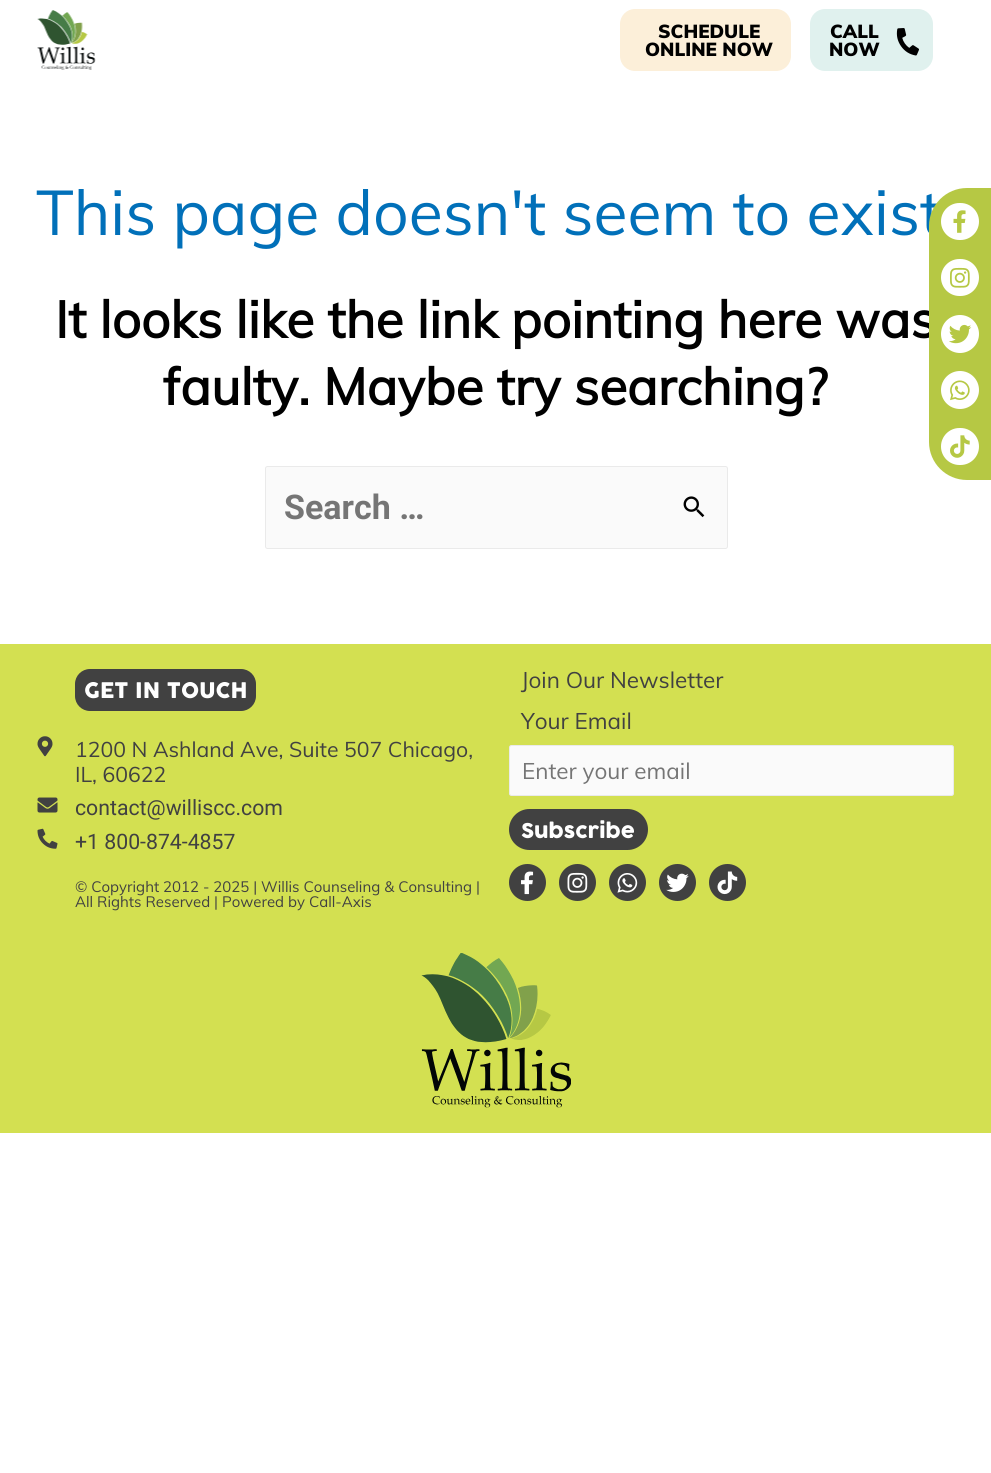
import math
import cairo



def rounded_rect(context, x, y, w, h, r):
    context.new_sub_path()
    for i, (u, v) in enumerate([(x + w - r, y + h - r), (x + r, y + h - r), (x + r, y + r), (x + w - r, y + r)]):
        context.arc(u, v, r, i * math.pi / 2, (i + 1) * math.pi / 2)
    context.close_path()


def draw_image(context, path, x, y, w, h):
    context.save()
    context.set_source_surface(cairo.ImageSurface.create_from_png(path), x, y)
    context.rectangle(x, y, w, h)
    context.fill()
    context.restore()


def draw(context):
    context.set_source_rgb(1, 1, 1)
    context.paint()
    draw_image(context, "images/1.png", 37, 10, 59, 60)
    context.set_source_rgb(252 / 255, 239 / 255, 217 / 255)
    rounded_rect(context, 620, 9, 171, 62, 15)
    context.fill()
    context.set_source_rgb(224 / 255, 241 / 255, 238 / 255)
    rounded_rect(context, 810, 9, 123, 62, 15)
    context.fill()
    draw_image(context, "images/2.png", 896, 28, 23, 28)
    context.set_source_rgb(250 / 255, 250 / 255, 250 / 255)
    rounded_rect(context, 265.5, 466.5, 462, 82, 2)
    context.fill_preserve()
    context.set_source_rgb(234 / 255, 234 / 255, 234 / 255)
    context.set_line_width(1)
    context.stroke()
    draw_image(context, "images/8.png", 683, 496, 22, 22)
    context.set_source_rgb(211 / 255, 224 / 255, 81 / 255)
    context.rectangle(0, 644, 991, 489)
    context.fill()
    context.set_source_rgb(65 / 255, 65 / 255, 65 / 255)
    rounded_rect(context, 75, 669, 181, 42, 15)
    context.fill()
    draw_image(context, "images/9.png", 37, 736, 16, 21)
    draw_image(context, "images/10.png", 37, 797, 21, 16)
    draw_image(context, "images/11.png", 37, 828, 21, 21)
    context.set_source_rgb(250 / 255, 250 / 255, 250 / 255)
    rounded_rect(context, 509.5, 745.5, 444, 50, 2)
    context.fill_preserve()
    context.set_source_rgb(234 / 255, 234 / 255, 234 / 255)
    context.stroke()
    context.set_source_rgb(65 / 255, 65 / 255, 65 / 255)
    rounded_rect(context, 509, 809, 139, 41, 20.5)
    context.fill()
    context.arc(527.5, 882.5, 18.5, 0, 2 * math.pi)
    context.fill()
    draw_image(context, "images/12.png", 521, 871, 13, 24)
    context.arc(577.5, 882.5, 18.5, 0, 2 * math.pi)
    context.fill()
    draw_image(context, "images/13.png", 567, 872, 21, 21)
    context.arc(627.5, 882.5, 18.5, 0, 2 * math.pi)
    context.fill()
    draw_image(context, "images/14.png", 617, 873, 21, 20)
    context.arc(677.5, 882.5, 18.5, 0, 2 * math.pi)
    context.fill()
    draw_image(context, "images/15.png", 666, 873, 23, 19)
    context.arc(727.5, 882.5, 18.5, 0, 2 * math.pi)
    context.fill()
    draw_image(context, "images/16.png", 717, 871, 21, 24)
    draw_image(context, "images/17.png", 421, 953, 150, 155)
    context.select_font_face("Muli Black")
    context.set_font_size(18.75)
    context.set_source_rgb(0, 0, 0)
    context.move_to(658, 38)
    context.show_text("SCHEDULE")
    context.move_to(645, 56)
    context.show_text("ONLINE NOW")
    context.move_to(830, 38)
    context.show_text("CALL")
    context.move_to(829, 56)
    context.show_text("NOW")
    context.select_font_face("Muli")
    context.set_font_size(62.5)
    context.set_source_rgb(1 / 255, 112 / 255, 185 / 255)
    context.move_to(36, 235)
    context.show_text("This page doesn't seem to exist")
    context.select_font_face("Muli", cairo.FontSlant.NORMAL, cairo.FontWeight.BOLD)
    context.set_font_size(51.25)
    context.set_source_rgb(0, 0, 0)
    context.move_to(55, 338)
    context.show_text("It looks like the link pointing here was")
    context.set_source_rgb(182 / 255, 200 / 255, 68 / 255)
    context.new_path()
    context.move_to(967, 188)
    context.line_to(991, 188)
    context.line_to(991, 480)
    context.line_to(967, 480)
    context.curve_to(946, 480, 929, 463, 929, 442)
    context.line_to(929, 226)
    context.curve_to(929, 205, 946, 188, 967, 188)
    context.close_path()
    context.fill()
    context.set_source_rgb(1, 1, 1)
    rounded_rect(context, 941, 428, 38, 37, 18.5)
    context.fill()
    draw_image(context, "images/7.png", 950, 435, 20, 23)
    context.arc(960, 390, 19, 0, 2 * math.pi)
    context.fill()
    draw_image(context, "images/6.png", 950, 380, 20, 21)
    context.arc(960, 334, 19, 0, 2 * math.pi)
    context.fill()
    draw_image(context, "images/5.png", 949, 324, 23, 20)
    rounded_rect(context, 941, 259, 38, 37, 18.5)
    context.fill()
    draw_image(context, "images/4.png", 950, 267, 20, 21)
    rounded_rect(context, 941, 203, 38, 37, 18.5)
    context.fill()
    draw_image(context, "images/3.png", 953, 210, 13, 23)
    context.set_source_rgb(0, 0, 0)
    context.move_to(163, 405)
    context.show_text("faulty. Maybe try searching?")
    context.select_font_face("Roboto", cairo.FontSlant.NORMAL, cairo.FontWeight.BOLD)
    context.set_font_size(34)
    context.set_source_rgb(117 / 255, 117 / 255, 117 / 255)
    context.move_to(284, 519)
    context.show_text("Search …")
    context.select_font_face("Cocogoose")
    context.set_font_size(21.25)
    context.set_source_rgb(1, 1, 1)
    context.move_to(84, 698)
    context.show_text("GET IN TOUCH")
    context.select_font_face("Muli")
    context.set_source_rgb(65 / 255, 65 / 255, 65 / 255)
    context.move_to(75, 757)
    context.show_text("1200 N Ashland Ave, Suite 507 Chicago,")
    context.move_to(75, 782)
    context.show_text("IL, 60622")
    context.select_font_face("Roboto")
    context.move_to(75, 815)
    context.show_text("contact@williscc.com")
    context.move_to(75, 849)
    context.show_text("+1 800-874-4857")
    context.select_font_face("Muli")
    context.set_font_size(15)
    context.move_to(75, 892)
    context.show_text("© Copyright 2012 - 2025 | Willis Counseling & Consulting |")
    context.move_to(75, 907)
    context.show_text("All Rights Reserved | Powered by Call-Axis")
    context.set_font_size(22.5)
    context.move_to(521, 688)
    context.show_text("Join Our Newsletter")
    context.move_to(521, 729)
    context.show_text("Your Email")
    context.set_source_rgb(117 / 255, 117 / 255, 117 / 255)
    context.move_to(522, 779)
    context.show_text("Enter your email")
    context.select_font_face("Cocogoose")
    context.set_font_size(20)
    context.set_source_rgb(1, 1, 1)
    context.move_to(521, 838)
    context.show_text("Subscribe")


surface = cairo.ImageSurface(cairo.Format.RGB24, 991, 1473)
context = cairo.Context(surface)
options = cairo.FontOptions()
options.set_hint_metrics(cairo.HintMetrics.OFF)
options.set_hint_style(cairo.HintStyle.NONE)
context.set_font_options(options)
context.set_miter_limit(4)
draw(context)
surface.write_to_png("out.png")
